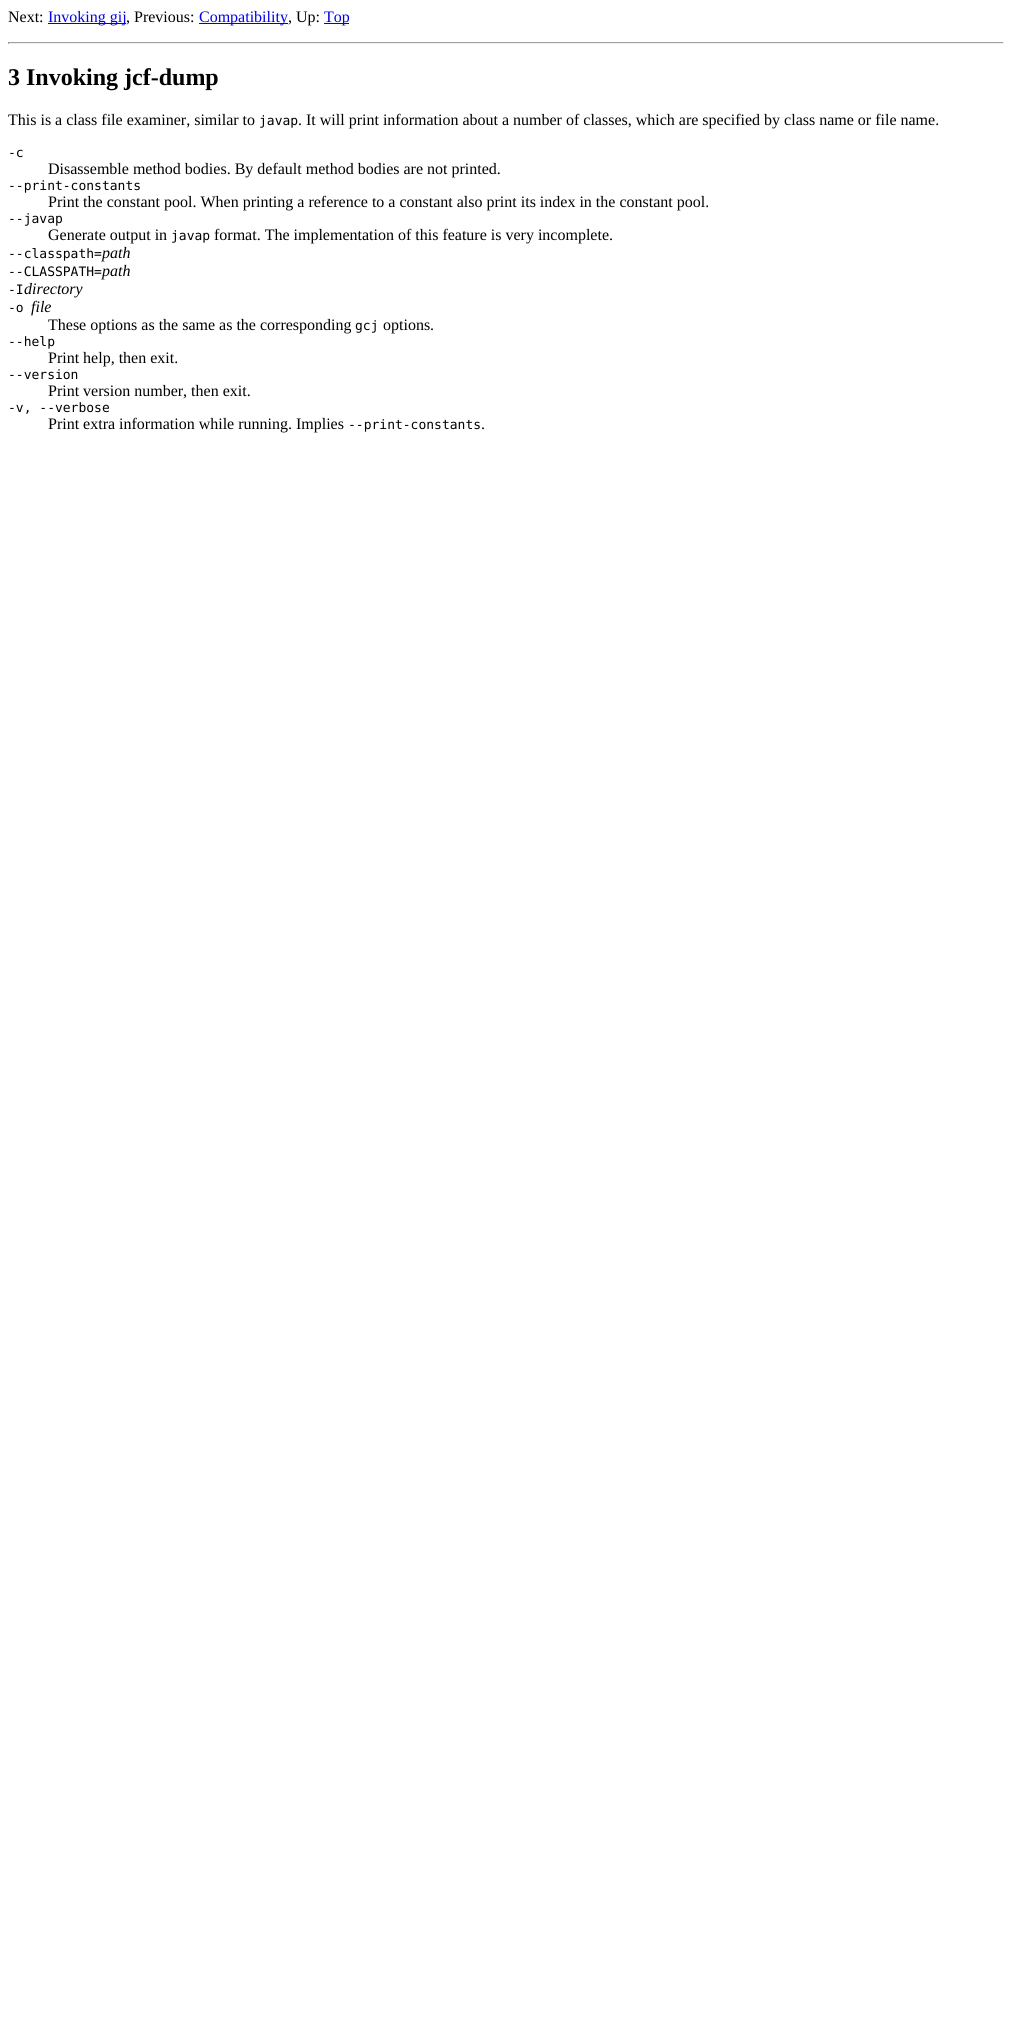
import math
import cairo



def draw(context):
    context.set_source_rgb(1, 1, 1)
    context.paint()
    context.set_source_rgb(0, 0, 238 / 255)
    context.rectangle(48, 23, 78, 1)
    context.fill()
    context.rectangle(199, 23, 89, 1)
    context.fill()
    context.rectangle(324, 23, 25, 1)
    context.fill()
    context.set_source_rgb(159 / 255, 159 / 255, 159 / 255)
    context.rectangle(8, 42, 996, 1)
    context.fill()
    context.set_source_rgb(238 / 255, 238 / 255, 238 / 255)
    context.rectangle(1003, 42, 1, 2)
    context.fill()
    context.rectangle(8, 43, 996, 1)
    context.fill()
    context.set_source_rgb(159 / 255, 159 / 255, 159 / 255)
    context.rectangle(8, 42, 1, 2)
    context.fill()
    context.select_font_face("Liberation Serif")
    context.set_font_size(16)
    context.set_source_rgb(0, 0, 0)
    context.move_to(8, 22)
    context.show_text("Next:")
    context.set_source_rgb(0, 0, 238 / 255)
    context.move_to(48, 22)
    context.show_text("Invoking gij")
    context.set_source_rgb(0, 0, 0)
    context.move_to(126, 22)
    context.show_text(", Previous:")
    context.set_source_rgb(0, 0, 238 / 255)
    context.move_to(199, 22)
    context.show_text("Compatibility")
    context.set_source_rgb(0, 0, 0)
    context.move_to(288, 22)
    context.show_text(", Up:")
    context.set_source_rgb(0, 0, 238 / 255)
    context.move_to(324, 22)
    context.show_text("Top")
    context.select_font_face("Liberation Serif", cairo.FontSlant.NORMAL, cairo.FontWeight.BOLD)
    context.set_font_size(24)
    context.set_source_rgb(0, 0, 0)
    context.move_to(8, 85)
    context.show_text("3 Invoking jcf-dump")
    context.select_font_face("Liberation Serif")
    context.set_font_size(16)
    context.move_to(8, 125)
    context.show_text("This is a class file examiner, similar to")
    context.select_font_face("DejaVu Sans Mono")
    context.set_font_size(13)
    context.move_to(259, 125)
    context.show_text("javap")
    context.select_font_face("Liberation Serif")
    context.set_font_size(16)
    context.move_to(298, 125)
    context.show_text(". It will print information about a number of classes, which are specified by class name or file name.")
    context.select_font_face("DejaVu Sans Mono")
    context.set_font_size(13)
    context.move_to(8, 157)
    context.show_text("-c")
    context.select_font_face("Liberation Serif")
    context.set_font_size(16)
    context.move_to(48, 174)
    context.show_text("Disassemble method bodies. By default method bodies are not printed.")
    context.select_font_face("DejaVu Sans Mono")
    context.set_font_size(13)
    context.move_to(8, 190)
    context.show_text("--print-constants")
    context.select_font_face("Liberation Serif")
    context.set_font_size(16)
    context.move_to(48, 207)
    context.show_text("Print the constant pool. When printing a reference to a constant also print its index in the constant pool.")
    context.select_font_face("DejaVu Sans Mono")
    context.set_font_size(13)
    context.move_to(8, 223)
    context.show_text("--javap")
    context.select_font_face("Liberation Serif")
    context.set_font_size(16)
    context.move_to(48, 240)
    context.show_text("Generate output in")
    context.select_font_face("DejaVu Sans Mono")
    context.set_font_size(13)
    context.move_to(171, 240)
    context.show_text("javap")
    context.select_font_face("Liberation Serif")
    context.set_font_size(16)
    context.move_to(214, 240)
    context.show_text("format. The implementation of this feature is very incomplete.")
    context.select_font_face("DejaVu Sans Mono")
    context.set_font_size(13)
    context.move_to(8, 258)
    context.show_text("--classpath=")
    context.select_font_face("Liberation Serif", cairo.FontSlant.ITALIC)
    context.set_font_size(16)
    context.move_to(102, 258)
    context.show_text("path")
    context.select_font_face("DejaVu Sans Mono")
    context.set_font_size(13)
    context.move_to(8, 276)
    context.show_text("--CLASSPATH=")
    context.select_font_face("Liberation Serif", cairo.FontSlant.ITALIC)
    context.set_font_size(16)
    context.move_to(102, 276)
    context.show_text("path")
    context.select_font_face("DejaVu Sans Mono")
    context.set_font_size(13)
    context.move_to(8, 294)
    context.show_text("-I")
    context.select_font_face("Liberation Serif", cairo.FontSlant.ITALIC)
    context.set_font_size(16)
    context.move_to(24, 294)
    context.show_text("directory")
    context.select_font_face("DejaVu Sans Mono")
    context.set_font_size(13)
    context.move_to(8, 312)
    context.show_text("-o")
    context.select_font_face("Liberation Serif", cairo.FontSlant.ITALIC)
    context.set_font_size(16)
    context.move_to(31, 312)
    context.show_text("file")
    context.select_font_face("Liberation Serif")
    context.move_to(48, 330)
    context.show_text("These options as the same as the corresponding")
    context.select_font_face("DejaVu Sans Mono")
    context.set_font_size(13)
    context.move_to(355, 330)
    context.show_text("gcj")
    context.select_font_face("Liberation Serif")
    context.set_font_size(16)
    context.move_to(383, 330)
    context.show_text("options.")
    context.select_font_face("DejaVu Sans Mono")
    context.set_font_size(13)
    context.move_to(8, 346)
    context.show_text("--help")
    context.select_font_face("Liberation Serif")
    context.set_font_size(16)
    context.move_to(48, 363)
    context.show_text("Print help, then exit.")
    context.select_font_face("DejaVu Sans Mono")
    context.set_font_size(13)
    context.move_to(8, 379)
    context.show_text("--version")
    context.select_font_face("Liberation Serif")
    context.set_font_size(16)
    context.move_to(48, 396)
    context.show_text("Print version number, then exit.")
    context.select_font_face("DejaVu Sans Mono")
    context.set_font_size(13)
    context.move_to(8, 412)
    context.show_text("-v, --verbose")
    context.select_font_face("Liberation Serif")
    context.set_font_size(16)
    context.move_to(48, 429)
    context.show_text("Print extra information while running. Implies")
    context.select_font_face("DejaVu Sans Mono")
    context.set_font_size(13)
    context.move_to(348, 429)
    context.show_text("--print-constants")
    context.select_font_face("Liberation Serif")
    context.set_font_size(16)
    context.move_to(481, 429)
    context.show_text(".")


surface = cairo.ImageSurface(cairo.Format.RGB24, 1012, 2020)
context = cairo.Context(surface)
options = cairo.FontOptions()
options.set_hint_metrics(cairo.HintMetrics.OFF)
options.set_hint_style(cairo.HintStyle.NONE)
context.set_font_options(options)
context.set_miter_limit(4)
draw(context)
surface.write_to_png("out.png")
